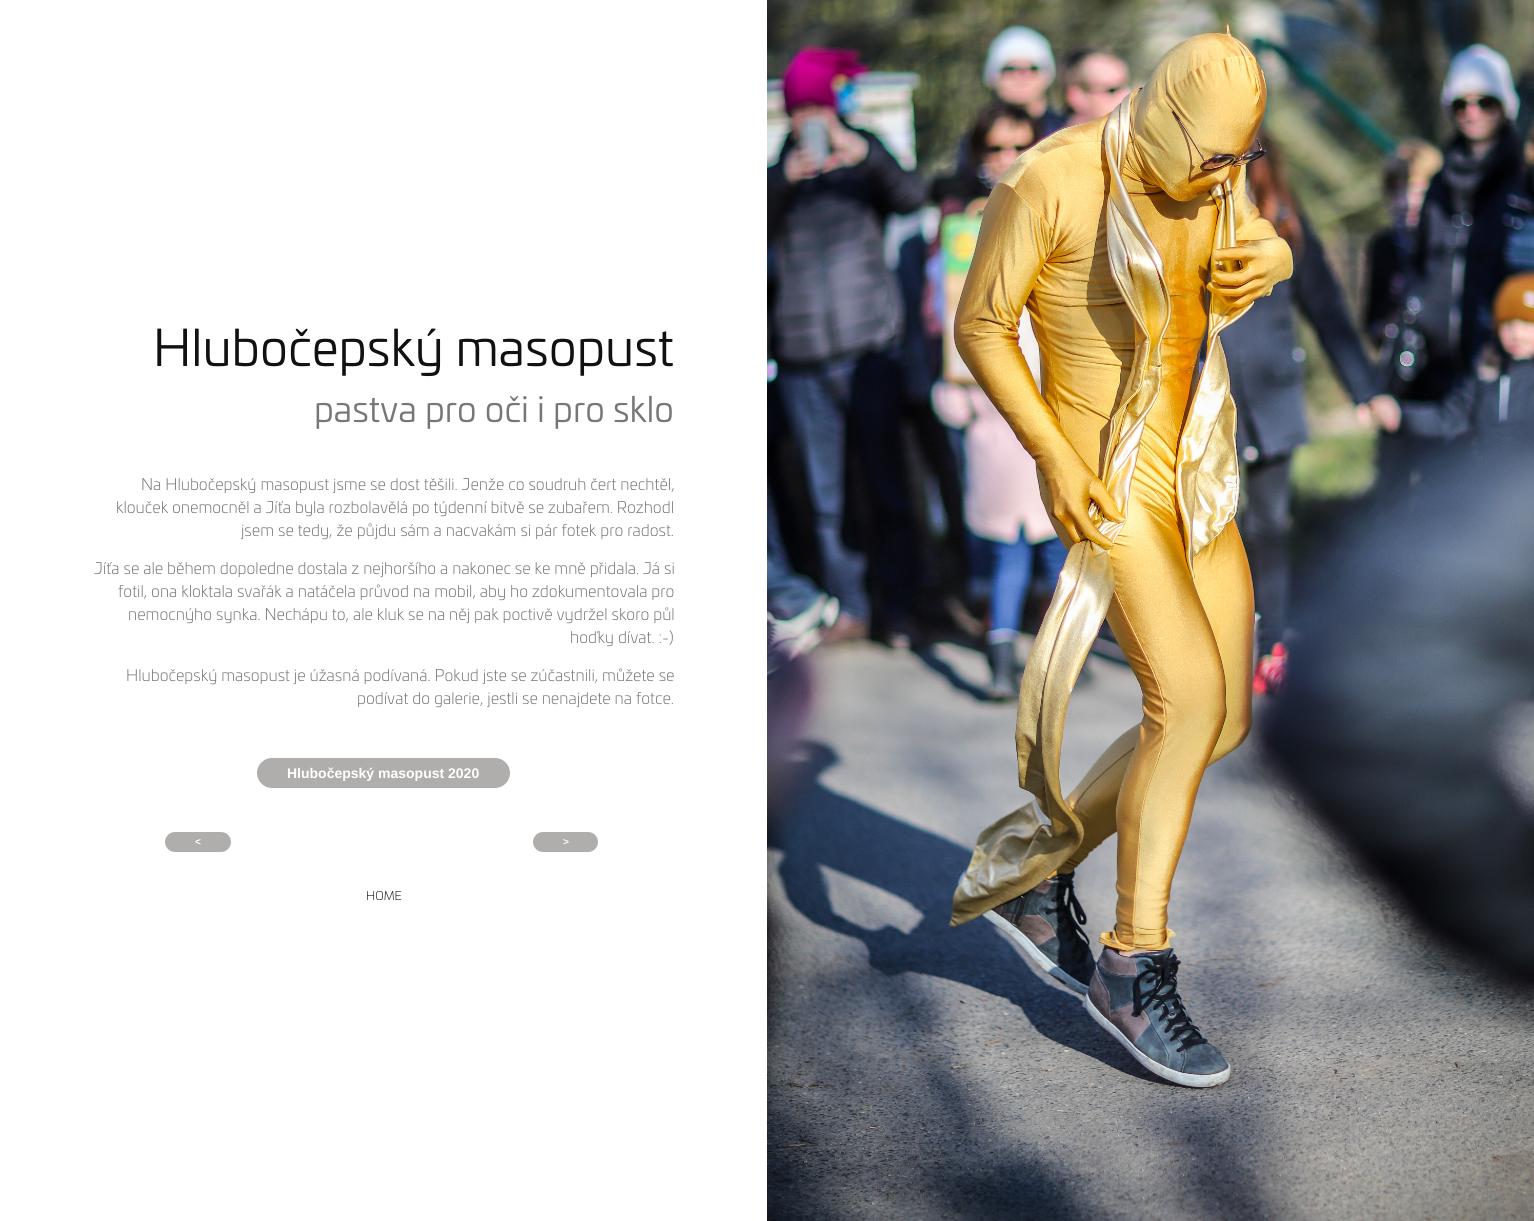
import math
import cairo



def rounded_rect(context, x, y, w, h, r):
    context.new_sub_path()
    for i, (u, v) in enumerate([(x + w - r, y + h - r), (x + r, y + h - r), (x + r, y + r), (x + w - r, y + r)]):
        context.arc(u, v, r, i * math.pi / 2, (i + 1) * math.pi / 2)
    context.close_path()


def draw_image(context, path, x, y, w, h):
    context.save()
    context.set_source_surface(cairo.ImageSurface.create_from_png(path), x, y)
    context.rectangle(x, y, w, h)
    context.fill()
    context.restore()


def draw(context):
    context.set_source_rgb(1, 1, 1)
    context.paint()
    context.set_source_rgb(176 / 255, 173 / 255, 173 / 255)
    rounded_rect(context, 257, 758, 253, 30, 15)
    context.fill()
    rounded_rect(context, 165, 832, 66, 20, 10)
    context.fill()
    rounded_rect(context, 533, 832, 65, 20, 10)
    context.fill()
    draw_image(context, "images/1.png", 767, 0, 767, 1221)
    context.select_font_face("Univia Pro")
    context.set_font_size(50)
    context.set_source_rgb(17 / 255, 17 / 255, 17 / 255)
    context.move_to(153, 366)
    context.show_text("Hlubočepský masopust")
    context.set_font_size(35)
    context.set_source_rgb(119 / 255, 119 / 255, 119 / 255)
    context.move_to(314, 422)
    context.show_text("pastva pro oči i pro sklo")
    context.select_font_face("Univia Pro Light")
    context.set_font_size(16)
    context.move_to(141, 490)
    context.show_text("Na Hlubočepský masopust jsme se dost těšili. Jenže co soudruh čert nechtěl,")
    context.move_to(116, 513)
    context.show_text("klouček onemocněl a Jíťa byla rozbolavělá po týdenní bitvě se zubařem. Rozhodl")
    context.move_to(241, 536)
    context.show_text("jsem se tedy, že půjdu sám a nacvakám si pár fotek pro radost.")
    context.move_to(94, 574)
    context.show_text("Jíťa se ale během dopoledne dostala z nejhoršího a nakonec se ke mně přidala. Já si")
    context.move_to(118, 597)
    context.show_text("fotil, ona kloktala svařák a natáčela průvod na mobil, aby ho zdokumentovala pro")
    context.move_to(128, 620)
    context.show_text("nemocnýho synka. Nechápu to, ale kluk se na něj pak poctivě vydržel skoro půl")
    context.move_to(570, 643)
    context.show_text("hoďky dívat. :-)")
    context.move_to(126, 681)
    context.show_text("Hlubočepský masopust je úžasná podívaná. Pokud jste se zúčastnili, můžete se")
    context.move_to(357, 704)
    context.show_text("podívat do galerie, jestli se nenajdete na fotce.")
    context.select_font_face("Liberation Sans", cairo.FontSlant.NORMAL, cairo.FontWeight.BOLD)
    context.set_font_size(14)
    context.set_source_rgb(1, 1, 1)
    context.move_to(287, 778)
    context.show_text("Hlubočepský masopust 2020")
    context.set_font_size(10)
    context.move_to(195, 845)
    context.show_text("<")
    context.move_to(563, 845)
    context.show_text(">")
    context.select_font_face("Univia Pro Light")
    context.set_font_size(12)
    context.set_source_rgb(17 / 255, 17 / 255, 17 / 255)
    context.move_to(366, 900)
    context.show_text("HOME")


surface = cairo.ImageSurface(cairo.Format.RGB24, 1534, 1221)
context = cairo.Context(surface)
options = cairo.FontOptions()
options.set_hint_metrics(cairo.HintMetrics.OFF)
options.set_hint_style(cairo.HintStyle.NONE)
context.set_font_options(options)
context.set_miter_limit(4)
draw(context)
surface.write_to_png("out.png")
